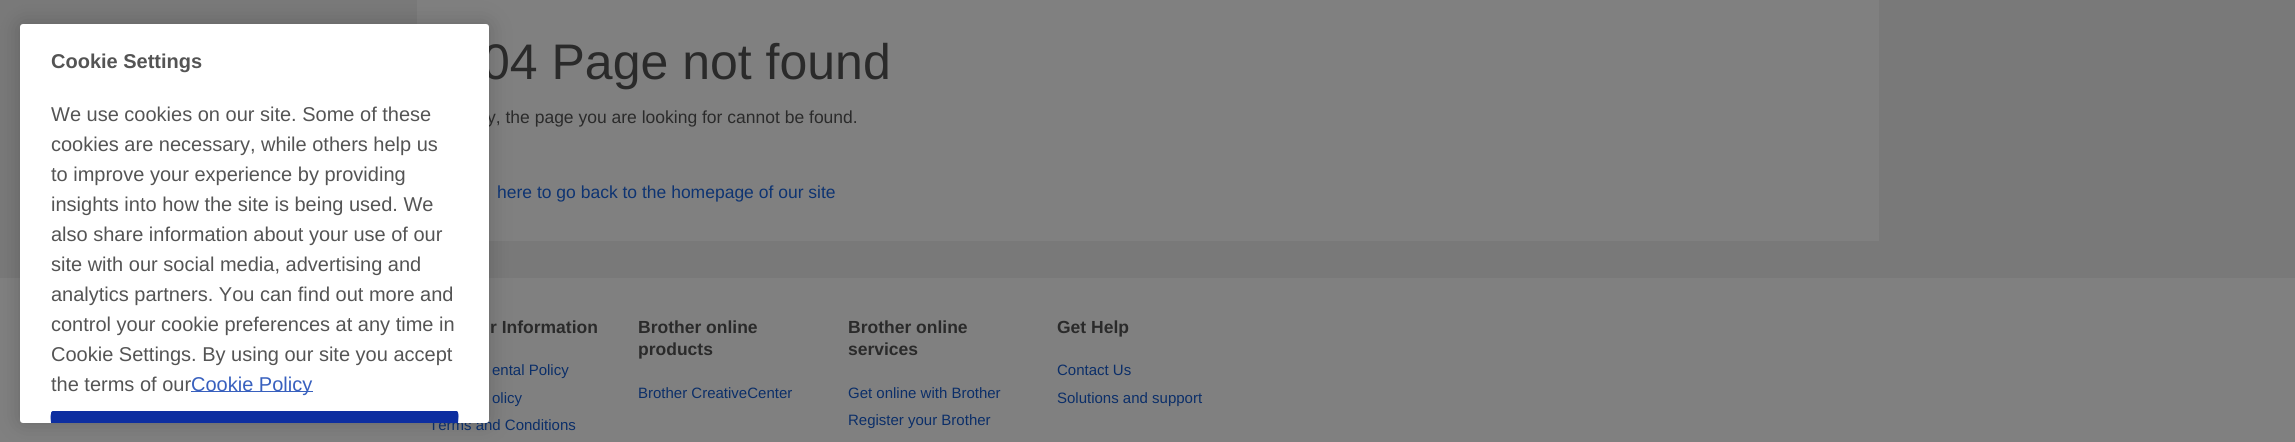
import math
import cairo



def rounded_rect(context, x, y, w, h, r):
    context.new_sub_path()
    for i, (u, v) in enumerate([(x + w - r, y + h - r), (x + r, y + h - r), (x + r, y + r), (x + w - r, y + r)]):
        context.arc(u, v, r, i * math.pi / 2, (i + 1) * math.pi / 2)
    context.close_path()


def draw_shadow(context, x, y, w, h, r, blur, alpha):
    context.push_group_with_content(cairo.Content.ALPHA)
    context.set_operator(cairo.Operator.SOURCE)
    for i in range(15, -16, -2):
        e = blur * i / 6
        if min(w, h) + 2 * e > 0:
            context.set_source_rgba(0, 0, 0, alpha * math.erfc((i - 1) / 8.5) / 2)
            rounded_rect(context, x - e, y - e, w + 2 * e, h + 2 * e, max(0, min(r + e + blur * .6, min(w, h) / 2 + e)))
            context.fill()
    context.mask(context.pop_group())


def draw(context):
    context.set_source_rgb(121 / 255, 121 / 255, 121 / 255)
    context.paint()
    context.set_source_rgb(128 / 255, 128 / 255, 128 / 255)
    context.rectangle(417, 0, 1462, 241)
    context.fill()
    context.rectangle(0, 278, 2295, 164)
    context.fill()
    context.set_source_rgb(0, 0, 0)
    draw_shadow(context, 20, 24, 469, 399, 3, 11, 0.2)
    context.select_font_face("Liberation Sans")
    context.set_font_size(50)
    context.set_source_rgb(42 / 255, 42 / 255, 42 / 255)
    context.move_to(482, 79)
    context.show_text("04 Page not found")
    context.set_font_size(17.5)
    context.move_to(487, 123)
    context.show_text("y, the page you are looking for cannot be found.")
    context.set_source_rgb(13 / 255, 51 / 255, 113 / 255)
    context.move_to(497, 198)
    context.show_text("here to go back to the homepage of our site")
    context.select_font_face("Liberation Sans", cairo.FontSlant.NORMAL, cairo.FontWeight.BOLD)
    context.set_source_rgb(42 / 255, 42 / 255, 42 / 255)
    context.move_to(490, 333)
    context.show_text("r Information")
    context.select_font_face("Liberation Sans")
    context.set_font_size(15)
    context.set_source_rgb(11 / 255, 46 / 255, 104 / 255)
    context.move_to(492, 375)
    context.show_text("ental Policy")
    context.move_to(492, 403)
    context.show_text("olicy")
    context.move_to(429, 430)
    context.show_text("Terms and Conditions")
    context.set_source_rgb(1, 1, 1)
    rounded_rect(context, 20, 24, 469, 399, 3)
    context.fill()
    context.set_source_rgb(13 / 255, 46 / 255, 160 / 255)
    context.new_path()
    context.move_to(53.5, 411)
    context.line_to(455.5, 411)
    context.curve_to(457, 411, 458, 412, 458, 413.5)
    context.line_to(458, 423)
    context.line_to(51, 423)
    context.line_to(51, 413.5)
    context.curve_to(51, 412, 52, 411, 53.5, 411)
    context.close_path()
    context.fill()
    context.new_path()
    context.move_to(54, 411)
    context.curve_to(49, 411, 51, 421, 51, 423)
    context.line_to(52, 423)
    context.line_to(52, 414)
    context.curve_to(52, 413, 53, 412, 54, 412)
    context.line_to(456, 412)
    context.curve_to(456, 412, 457, 413, 457, 414)
    context.line_to(457, 423)
    context.line_to(458, 423)
    context.curve_to(458, 421, 460, 411, 456, 411)
    context.close_path()
    context.fill()
    context.set_source_rgb(56 / 255, 96 / 255, 190 / 255)
    context.rectangle(191, 391, 122, 1)
    context.fill()
    context.set_font_size(20)
    context.move_to(191, 391)
    context.show_text("Cookie Policy")
    context.set_source_rgb(84 / 255, 84 / 255, 84 / 255)
    context.move_to(51, 391)
    context.show_text("the terms of our")
    context.move_to(51, 361)
    context.show_text("Cookie Settings. By using our site you accept")
    context.move_to(51, 331)
    context.show_text("control your cookie preferences at any time in")
    context.move_to(51, 301)
    context.show_text("analytics partners. You can find out more and")
    context.move_to(51, 271)
    context.show_text("site with our social media, advertising and")
    context.move_to(51, 241)
    context.show_text("also share information about your use of our")
    context.move_to(51, 211)
    context.show_text("insights into how the site is being used. We")
    context.move_to(51, 181)
    context.show_text("to improve your experience by providing")
    context.move_to(51, 151)
    context.show_text("cookies are necessary, while others help us")
    context.move_to(51, 121)
    context.show_text("We use cookies on our site. Some of these")
    context.select_font_face("Liberation Sans", cairo.FontSlant.NORMAL, cairo.FontWeight.BOLD)
    context.move_to(51, 68)
    context.show_text("Cookie Settings")
    context.set_font_size(17.5)
    context.set_source_rgb(42 / 255, 42 / 255, 42 / 255)
    context.move_to(638, 333)
    context.show_text("Brother online")
    context.move_to(638, 355)
    context.show_text("products")
    context.select_font_face("Liberation Sans")
    context.set_font_size(15)
    context.set_source_rgb(11 / 255, 46 / 255, 104 / 255)
    context.move_to(638, 398)
    context.show_text("Brother CreativeCenter")
    context.select_font_face("Liberation Sans", cairo.FontSlant.NORMAL, cairo.FontWeight.BOLD)
    context.set_font_size(17.5)
    context.set_source_rgb(42 / 255, 42 / 255, 42 / 255)
    context.move_to(848, 333)
    context.show_text("Brother online")
    context.move_to(848, 355)
    context.show_text("services")
    context.select_font_face("Liberation Sans")
    context.set_font_size(15)
    context.set_source_rgb(11 / 255, 46 / 255, 104 / 255)
    context.move_to(848, 398)
    context.show_text("Get online with Brother")
    context.move_to(848, 425)
    context.show_text("Register your Brother")
    context.select_font_face("Liberation Sans", cairo.FontSlant.NORMAL, cairo.FontWeight.BOLD)
    context.set_font_size(17.5)
    context.set_source_rgb(42 / 255, 42 / 255, 42 / 255)
    context.move_to(1057, 333)
    context.show_text("Get Help")
    context.select_font_face("Liberation Sans")
    context.set_font_size(15)
    context.set_source_rgb(11 / 255, 46 / 255, 104 / 255)
    context.move_to(1057, 375)
    context.show_text("Contact Us")
    context.move_to(1057, 403)
    context.show_text("Solutions and support")


surface = cairo.ImageSurface(cairo.Format.RGB24, 2295, 442)
context = cairo.Context(surface)
options = cairo.FontOptions()
options.set_hint_metrics(cairo.HintMetrics.OFF)
options.set_hint_style(cairo.HintStyle.NONE)
context.set_font_options(options)
context.set_miter_limit(4)
draw(context)
surface.write_to_png("out.png")
